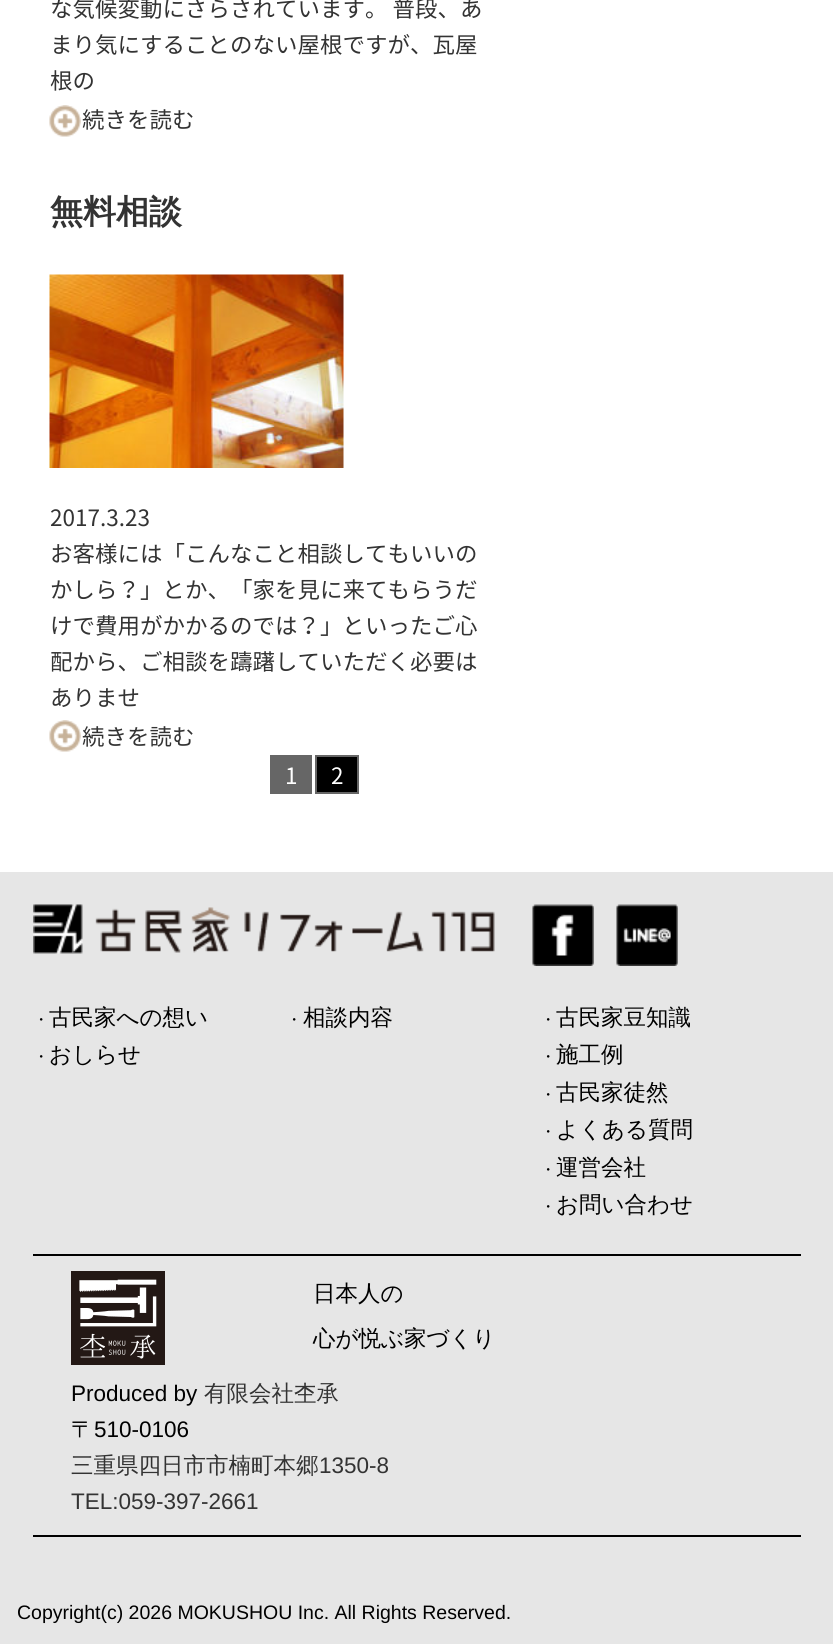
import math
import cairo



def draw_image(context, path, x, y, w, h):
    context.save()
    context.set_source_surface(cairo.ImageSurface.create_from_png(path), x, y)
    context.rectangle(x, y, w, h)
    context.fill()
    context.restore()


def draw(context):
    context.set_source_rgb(1, 1, 1)
    context.paint()
    draw_image(context, "images/1.png", 49, 105, 32, 32)
    draw_image(context, "images/2.png", 49, 274, 295, 194)
    draw_image(context, "images/1.png", 49, 720, 32, 32)
    context.set_source_rgb(102 / 255, 102 / 255, 102 / 255)
    context.rectangle(270, 755, 42, 39)
    context.fill()
    context.set_source_rgb(0, 0, 0)
    context.rectangle(316, 756, 42, 37)
    context.fill_preserve()
    context.set_source_rgb(102 / 255, 102 / 255, 102 / 255)
    context.stroke()
    context.set_source_rgb(230 / 255, 230 / 255, 230 / 255)
    context.rectangle(0, 872, 833, 772)
    context.fill()
    draw_image(context, "images/3.png", 33, 904, 462, 50)
    draw_image(context, "images/4.png", 532, 904, 62, 62)
    draw_image(context, "images/5.png", 616, 904, 62, 62)
    context.set_source_rgb(0, 0, 0)
    context.rectangle(33, 1254, 768, 2)
    context.fill()
    context.rectangle(33, 1535, 768, 2)
    context.fill()
    draw_image(context, "images/6.png", 71, 1271, 94, 94)
    context.select_font_face("Noto Sans JP")
    context.set_font_size(22.5)
    context.set_source_rgb(51 / 255, 51 / 255, 51 / 255)
    context.move_to(50, 17)
    context.show_text("な気候変動にさらされています。 普段、あ")
    context.move_to(50, 53)
    context.show_text("まり気にすることのない屋根ですが、瓦屋")
    context.move_to(50, 89)
    context.show_text("根の")
    context.move_to(82, 128)
    context.show_text("続きを読む")
    context.select_font_face("WenQuanYi Zen Hei", cairo.FontSlant.NORMAL, cairo.FontWeight.BOLD)
    context.set_font_size(33)
    context.move_to(50, 223)
    context.show_text("無料相談")
    context.select_font_face("Noto Sans JP")
    context.set_font_size(22.5)
    context.move_to(50, 526)
    context.show_text("2017.3.23")
    context.move_to(50, 562)
    context.show_text("お客様には「こんなこと相談してもいいの")
    context.move_to(50, 598)
    context.show_text("かしら？」とか、「家を見に来てもらうだ")
    context.move_to(50, 634)
    context.show_text("けで費用がかかるのでは？」といったご心")
    context.move_to(50, 670)
    context.show_text("配から、ご相談を躊躇していただく必要は")
    context.move_to(50, 706)
    context.show_text("ありませ")
    context.move_to(82, 745)
    context.show_text("続きを読む")
    context.set_source_rgb(1, 1, 1)
    context.move_to(285, 784)
    context.show_text("1")
    context.move_to(331, 784)
    context.show_text("2")
    context.select_font_face("WenQuanYi Zen Hei Medium")
    context.set_font_size(16)
    context.set_source_rgb(0, 0, 0)
    context.move_to(33, 1025)
    context.show_text("・")
    context.set_font_size(22.5)
    context.move_to(49, 1025)
    context.show_text("古民家への想い")
    context.set_font_size(16)
    context.move_to(33, 1062)
    context.show_text("・")
    context.set_font_size(22.5)
    context.move_to(49, 1062)
    context.show_text("おしらせ")
    context.set_font_size(16)
    context.move_to(286, 1025)
    context.show_text("・")
    context.set_font_size(22.5)
    context.move_to(303, 1025)
    context.show_text("相談内容")
    context.set_font_size(16)
    context.move_to(540, 1025)
    context.show_text("・")
    context.set_font_size(22.5)
    context.move_to(556, 1025)
    context.show_text("古民家豆知識")
    context.set_font_size(16)
    context.move_to(540, 1062)
    context.show_text("・")
    context.set_font_size(22.5)
    context.move_to(556, 1062)
    context.show_text("施工例")
    context.set_font_size(16)
    context.move_to(540, 1100)
    context.show_text("・")
    context.set_font_size(22.5)
    context.move_to(556, 1100)
    context.show_text("古民家徒然")
    context.set_font_size(16)
    context.move_to(540, 1137)
    context.show_text("・")
    context.set_font_size(22.5)
    context.move_to(556, 1137)
    context.show_text("よくある質問")
    context.set_font_size(16)
    context.move_to(540, 1175)
    context.show_text("・")
    context.set_font_size(22.5)
    context.move_to(556, 1175)
    context.show_text("運営会社")
    context.set_font_size(16)
    context.move_to(540, 1212)
    context.show_text("・")
    context.set_font_size(22.5)
    context.move_to(556, 1212)
    context.show_text("お問い合わせ")
    context.move_to(313, 1301)
    context.show_text("日本人の")
    context.move_to(313, 1346)
    context.show_text("心が悦ぶ家づくり")
    context.select_font_face("Liberation Sans")
    context.move_to(71, 1401)
    context.show_text("Produced by")
    context.select_font_face("WenQuanYi Zen Hei Medium")
    context.set_source_rgb(51 / 255, 51 / 255, 51 / 255)
    context.move_to(204, 1401)
    context.show_text("有限会社杢承")
    context.set_source_rgb(0, 0, 0)
    context.move_to(71, 1437)
    context.show_text("〒")
    context.select_font_face("Liberation Sans")
    context.move_to(94, 1437)
    context.show_text("510-0106")
    context.select_font_face("WenQuanYi Zen Hei Medium")
    context.set_source_rgb(51 / 255, 51 / 255, 51 / 255)
    context.move_to(71, 1473)
    context.show_text("三重県四日市市楠町本郷")
    context.select_font_face("Liberation Sans")
    context.move_to(319, 1473)
    context.show_text("1350-8")
    context.move_to(71, 1509)
    context.show_text("TEL:059-397-2661")
    context.set_font_size(19.5)
    context.set_source_rgb(0, 0, 0)
    context.move_to(17, 1619)
    context.show_text("Copyright(c) 2026 MOKUSHOU Inc. All Rights Reserved.")


surface = cairo.ImageSurface(cairo.Format.RGB24, 833, 1644)
context = cairo.Context(surface)
options = cairo.FontOptions()
options.set_hint_metrics(cairo.HintMetrics.OFF)
options.set_hint_style(cairo.HintStyle.NONE)
context.set_font_options(options)
context.set_miter_limit(4)
draw(context)
surface.write_to_png("out.png")
